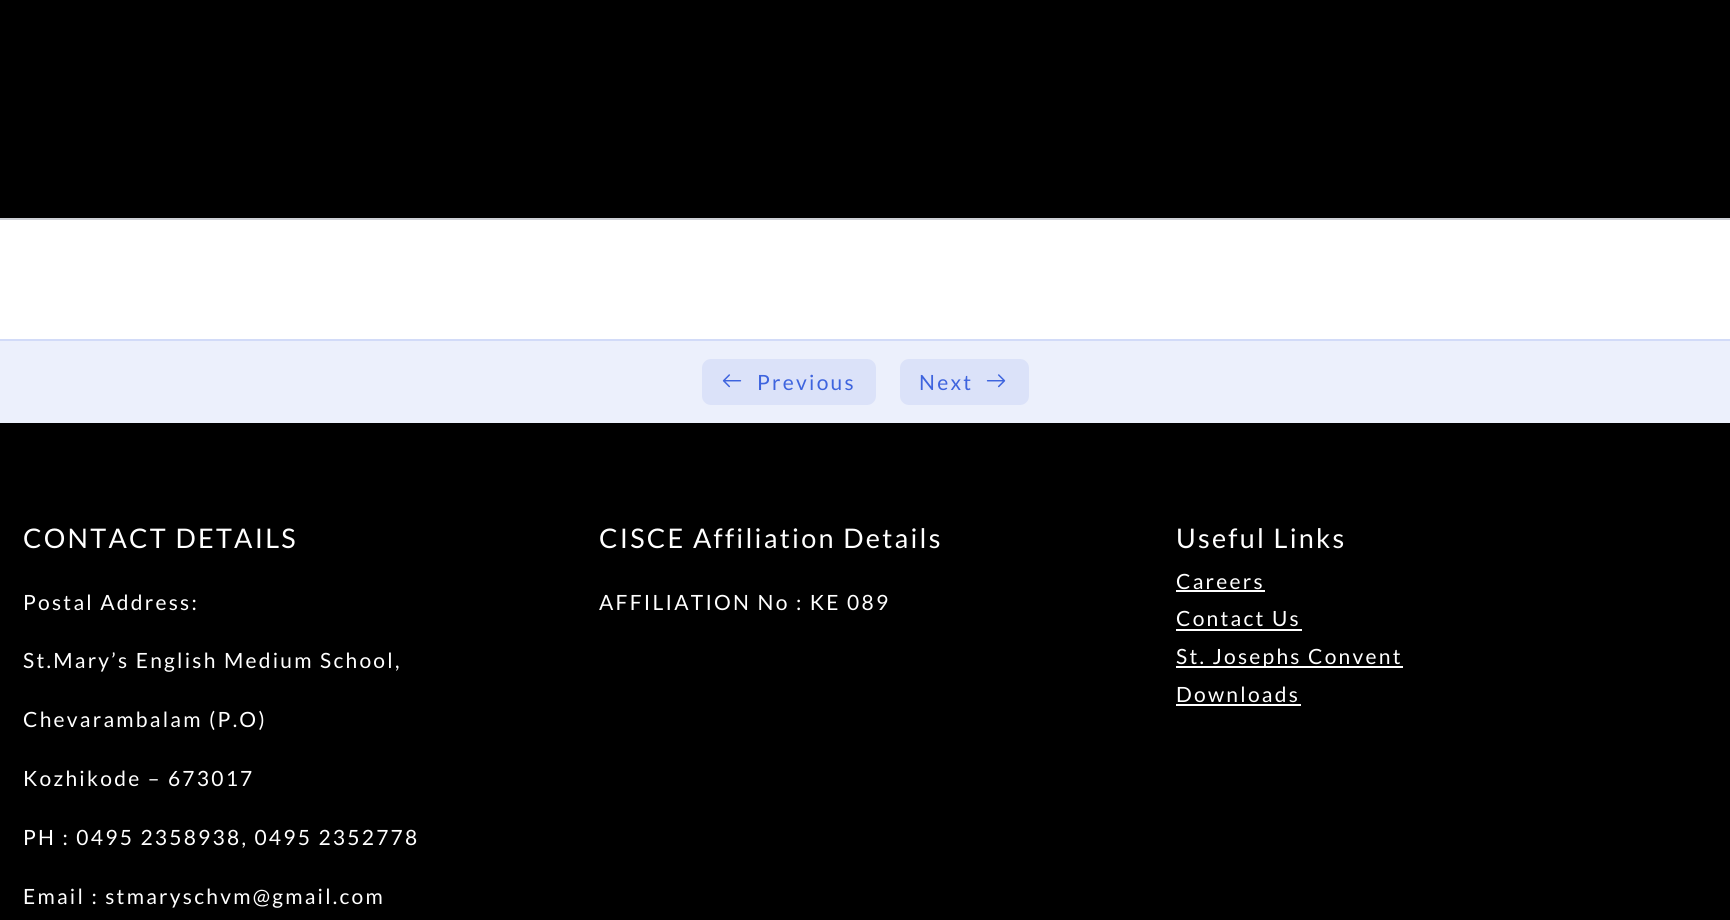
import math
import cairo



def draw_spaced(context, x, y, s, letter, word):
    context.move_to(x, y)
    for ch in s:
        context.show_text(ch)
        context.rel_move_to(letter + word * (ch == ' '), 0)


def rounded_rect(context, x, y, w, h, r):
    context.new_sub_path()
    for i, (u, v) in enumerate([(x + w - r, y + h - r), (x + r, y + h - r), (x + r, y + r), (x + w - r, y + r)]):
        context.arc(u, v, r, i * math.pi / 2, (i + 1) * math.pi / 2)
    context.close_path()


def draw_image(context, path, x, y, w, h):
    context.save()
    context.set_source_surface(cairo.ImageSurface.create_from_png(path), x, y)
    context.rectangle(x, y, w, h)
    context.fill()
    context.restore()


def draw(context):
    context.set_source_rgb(1, 1, 1)
    context.paint()
    context.set_source_rgb(0, 0, 0)
    context.rectangle(0, 0, 1730, 218)
    context.fill()
    context.set_source_rgb(205 / 255, 207 / 255, 213 / 255)
    context.rectangle(0, 218, 1730, 2)
    context.fill()
    context.set_source_rgb(236 / 255, 240 / 255, 252 / 255)
    context.rectangle(0, 341, 1730, 82)
    context.fill()
    context.set_source_rgb(210 / 255, 219 / 255, 248 / 255)
    context.rectangle(0, 339, 1730, 2)
    context.fill()
    context.set_source_rgb(219 / 255, 226 / 255, 249 / 255)
    rounded_rect(context, 702, 359, 174, 46, 9)
    context.fill()
    draw_image(context, "images/1.png", 722, 374, 20, 14)
    rounded_rect(context, 900, 359, 129, 46, 9)
    context.fill()
    draw_image(context, "images/2.png", 986, 374, 20, 14)
    context.set_source_rgb(0, 0, 0)
    context.rectangle(0, 423, 1730, 497)
    context.fill()
    context.set_source_rgb(1, 1, 1)
    context.rectangle(1176, 590, 89, 2)
    context.fill()
    context.rectangle(1176, 629, 126, 2)
    context.fill()
    context.rectangle(1176, 666, 227, 2)
    context.fill()
    context.rectangle(1176, 704, 125, 2)
    context.fill()
    context.select_font_face("Lato")
    context.set_font_size(21)
    context.set_source_rgb(62 / 255, 100 / 255, 222 / 255)
    draw_spaced(context, 757, 390, "Previous", 2.25, 0)
    draw_spaced(context, 919, 390, "Next", 2.25, 0)
    context.set_font_size(27)
    context.set_source_rgb(1, 1, 1)
    draw_spaced(context, 23, 548, "CONTACT DETAILS", 2.25, 0)
    context.set_font_size(21)
    draw_spaced(context, 23, 610, "Postal Address:", 2.25, 0)
    draw_spaced(context, 23, 668, "St.Mary’s English Medium School,", 2.25, 0)
    draw_spaced(context, 23, 727, "Chevarambalam (P.O)", 2.25, 0)
    draw_spaced(context, 23, 786, "Kozhikode – 673017", 2.25, 0)
    draw_spaced(context, 23, 845, "PH : 0495 2358938, 0495 2352778", 2.25, 0)
    draw_spaced(context, 23, 904, "Email : stmaryschvm@gmail.com", 2.25, 0)
    context.set_font_size(27)
    draw_spaced(context, 599, 548, "CISCE Affiliation Details", 2.25, 0)
    context.set_font_size(21)
    draw_spaced(context, 599, 610, "AFFILIATION No : KE 089", 2.25, 0)
    context.set_font_size(27)
    draw_spaced(context, 1176, 548, "Useful Links", 2.25, 0)
    context.set_font_size(21)
    draw_spaced(context, 1176, 589, "Careers", 2.25, 0)
    draw_spaced(context, 1176, 626, "Contact Us", 2.25, 0)
    draw_spaced(context, 1176, 664, "St. Josephs Convent", 2.25, 0)
    draw_spaced(context, 1176, 702, "Downloads", 2.25, 0)


surface = cairo.ImageSurface(cairo.Format.RGB24, 1730, 920)
context = cairo.Context(surface)
options = cairo.FontOptions()
options.set_hint_metrics(cairo.HintMetrics.OFF)
options.set_hint_style(cairo.HintStyle.NONE)
context.set_font_options(options)
context.set_miter_limit(4)
draw(context)
surface.write_to_png("out.png")
